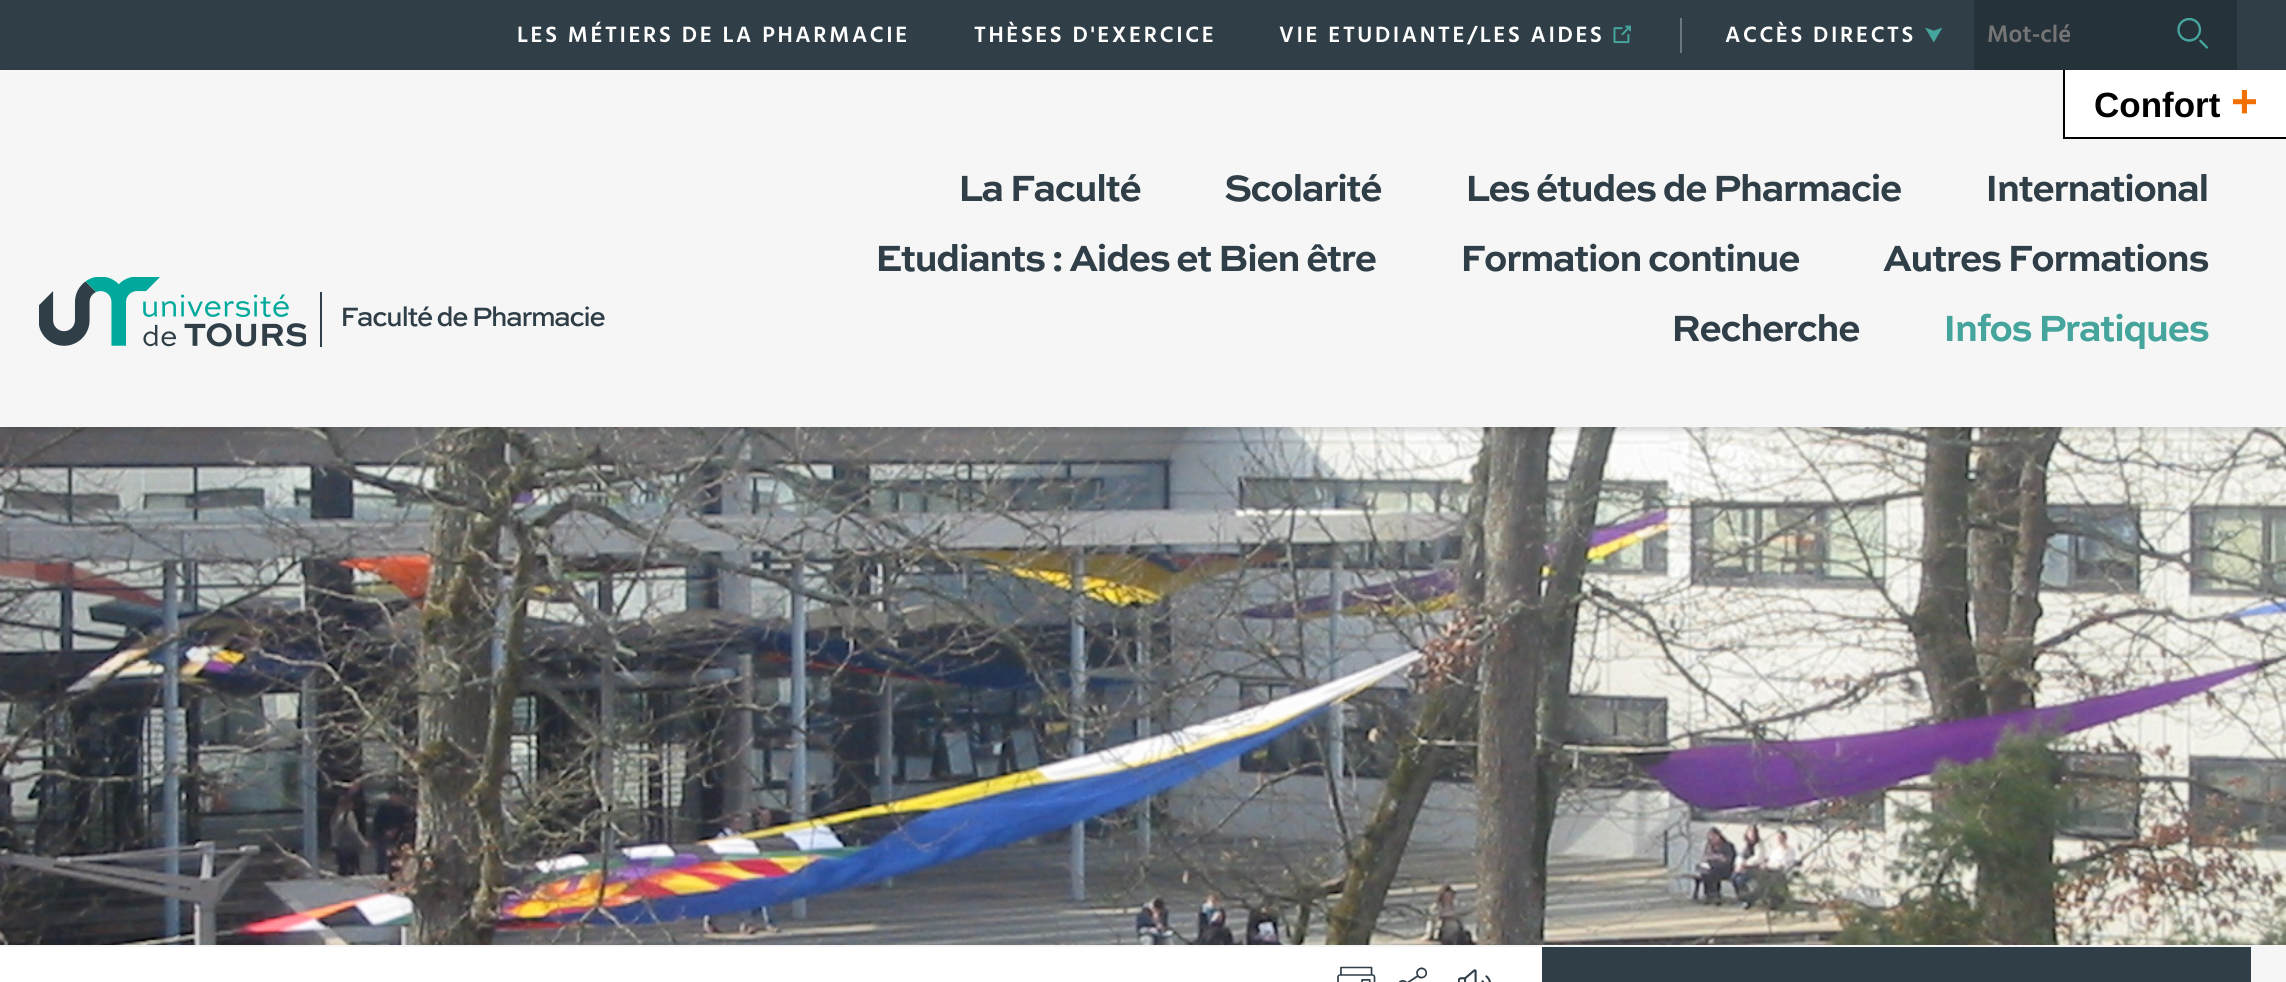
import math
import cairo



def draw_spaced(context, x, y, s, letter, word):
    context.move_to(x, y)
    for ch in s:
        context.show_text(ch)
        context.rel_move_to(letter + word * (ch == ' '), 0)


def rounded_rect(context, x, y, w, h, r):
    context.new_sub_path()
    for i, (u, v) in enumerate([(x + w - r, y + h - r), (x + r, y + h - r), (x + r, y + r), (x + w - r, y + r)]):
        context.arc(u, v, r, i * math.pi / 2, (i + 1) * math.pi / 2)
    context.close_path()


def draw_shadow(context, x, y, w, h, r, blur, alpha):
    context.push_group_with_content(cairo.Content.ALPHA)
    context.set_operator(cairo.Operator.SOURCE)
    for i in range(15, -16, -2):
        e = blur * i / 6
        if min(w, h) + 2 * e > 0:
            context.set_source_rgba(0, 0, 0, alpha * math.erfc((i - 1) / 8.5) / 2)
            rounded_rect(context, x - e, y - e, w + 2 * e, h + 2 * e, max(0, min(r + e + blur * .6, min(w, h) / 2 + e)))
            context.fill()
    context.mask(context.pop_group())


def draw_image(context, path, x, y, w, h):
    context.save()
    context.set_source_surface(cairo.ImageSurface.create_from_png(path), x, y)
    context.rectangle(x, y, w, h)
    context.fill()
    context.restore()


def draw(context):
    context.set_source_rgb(47 / 255, 62 / 255, 71 / 255)
    context.paint()
    draw_image(context, "images/1.png", 1613, 25, 18, 19)
    context.set_source_rgb(109 / 255, 120 / 255, 126 / 255)
    context.rectangle(1680, 18, 2, 35)
    context.fill()
    draw_image(context, "images/2.png", 1925, 27, 17, 16)
    context.set_source_rgb(38 / 255, 50 / 255, 57 / 255)
    context.rectangle(1974, 0, 263, 70)
    context.fill()
    draw_image(context, "images/3.png", 2177, 17, 31, 32)
    draw_image(context, "images/5.png", 0, 427, 2286, 518)
    context.set_source_rgb(0, 0, 0)
    draw_shadow(context, 0, 74, 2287, 357, 0, 3.5, 0.15)
    context.set_source_rgb(246 / 255, 246 / 255, 246 / 255)
    context.rectangle(0, 70, 2286, 357)
    context.fill()
    draw_image(context, "images/4.png", 39, 277, 267, 70)
    context.set_source_rgb(47 / 255, 62 / 255, 71 / 255)
    context.rectangle(320, 292, 2, 55)
    context.fill()
    context.set_source_rgb(1, 1, 1)
    context.rectangle(2065, 70, 221, 67)
    context.fill()
    context.set_source_rgb(0, 0, 0)
    context.rectangle(2063, 137, 223, 2)
    context.fill()
    context.rectangle(2063, 70, 2, 68)
    context.fill()
    context.set_source_rgb(246 / 255, 246 / 255, 246 / 255)
    context.rectangle(0, 945, 2286, 37)
    context.fill()
    context.set_source_rgb(1, 1, 1)
    context.rectangle(0, 947, 1542, 35)
    context.fill()
    context.set_source_rgb(47 / 255, 62 / 255, 71 / 255)
    context.rectangle(1542, 947, 709, 35)
    context.fill()
    draw_image(context, "images/6.png", 1337, 966, 39, 16)
    draw_image(context, "images/7.png", 1398, 967, 30, 15)
    draw_image(context, "images/8.png", 1458, 969, 33, 13)
    context.select_font_face("Hind SemiBold")
    context.set_font_size(22.75)
    context.set_source_rgb(1, 1, 1)
    draw_spaced(context, 517, 42, "LES MÉTIERS DE LA PHARMACIE", 2.6, 0)
    draw_spaced(context, 974, 42, "THÈSES D'EXERCICE", 2.6, 0)
    draw_spaced(context, 1279, 42, "VIE ETUDIANTE/LES AIDES", 2.6, 0)
    draw_spaced(context, 1725, 42, "ACCÈS DIRECTS", 2.6, 0)
    context.set_font_size(24.5)
    context.set_source_rgb(117 / 255, 117 / 255, 117 / 255)
    context.move_to(1987, 42)
    context.show_text("Mot-clé")
    context.select_font_face("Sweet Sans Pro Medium")
    context.set_font_size(28)
    context.set_source_rgb(47 / 255, 62 / 255, 71 / 255)
    draw_spaced(context, 340, 326, "Faculté de Pharmacie", -1.75, 0)
    context.select_font_face("Sweet Sans Pro", cairo.FontSlant.NORMAL, cairo.FontWeight.BOLD)
    context.set_font_size(38.5)
    draw_spaced(context, 958, 201, "La Faculté", -1.75, 0)
    draw_spaced(context, 1224, 201, "Scolarité", -1.75, 0)
    draw_spaced(context, 1465, 201, "Les études de Pharmacie", -1.75, 0)
    draw_spaced(context, 1985, 201, "International", -1.75, 0)
    draw_spaced(context, 875, 271, "Etudiants : Aides et Bien être", -1.75, 0)
    draw_spaced(context, 1460, 271, "Formation continue", -1.75, 0)
    draw_spaced(context, 1883, 271, "Autres Formations", -1.75, 0)
    draw_spaced(context, 1671, 341, "Recherche", -1.75, 0)
    context.set_source_rgb(69 / 255, 165 / 255, 157 / 255)
    draw_spaced(context, 1943, 341, "Infos Pratiques", -1.75, 0)
    context.select_font_face("Liberation Sans", cairo.FontSlant.NORMAL, cairo.FontWeight.BOLD)
    context.set_font_size(35)
    context.set_source_rgb(0, 0, 0)
    context.move_to(2094, 117)
    context.show_text("Confort")
    context.set_font_size(46)
    context.set_source_rgb(241 / 255, 110 / 255, 0)
    context.move_to(2231, 117)
    context.show_text("+")


surface = cairo.ImageSurface(cairo.Format.RGB24, 2286, 982)
context = cairo.Context(surface)
options = cairo.FontOptions()
options.set_hint_metrics(cairo.HintMetrics.OFF)
options.set_hint_style(cairo.HintStyle.NONE)
context.set_font_options(options)
context.set_miter_limit(4)
draw(context)
surface.write_to_png("out.png")
